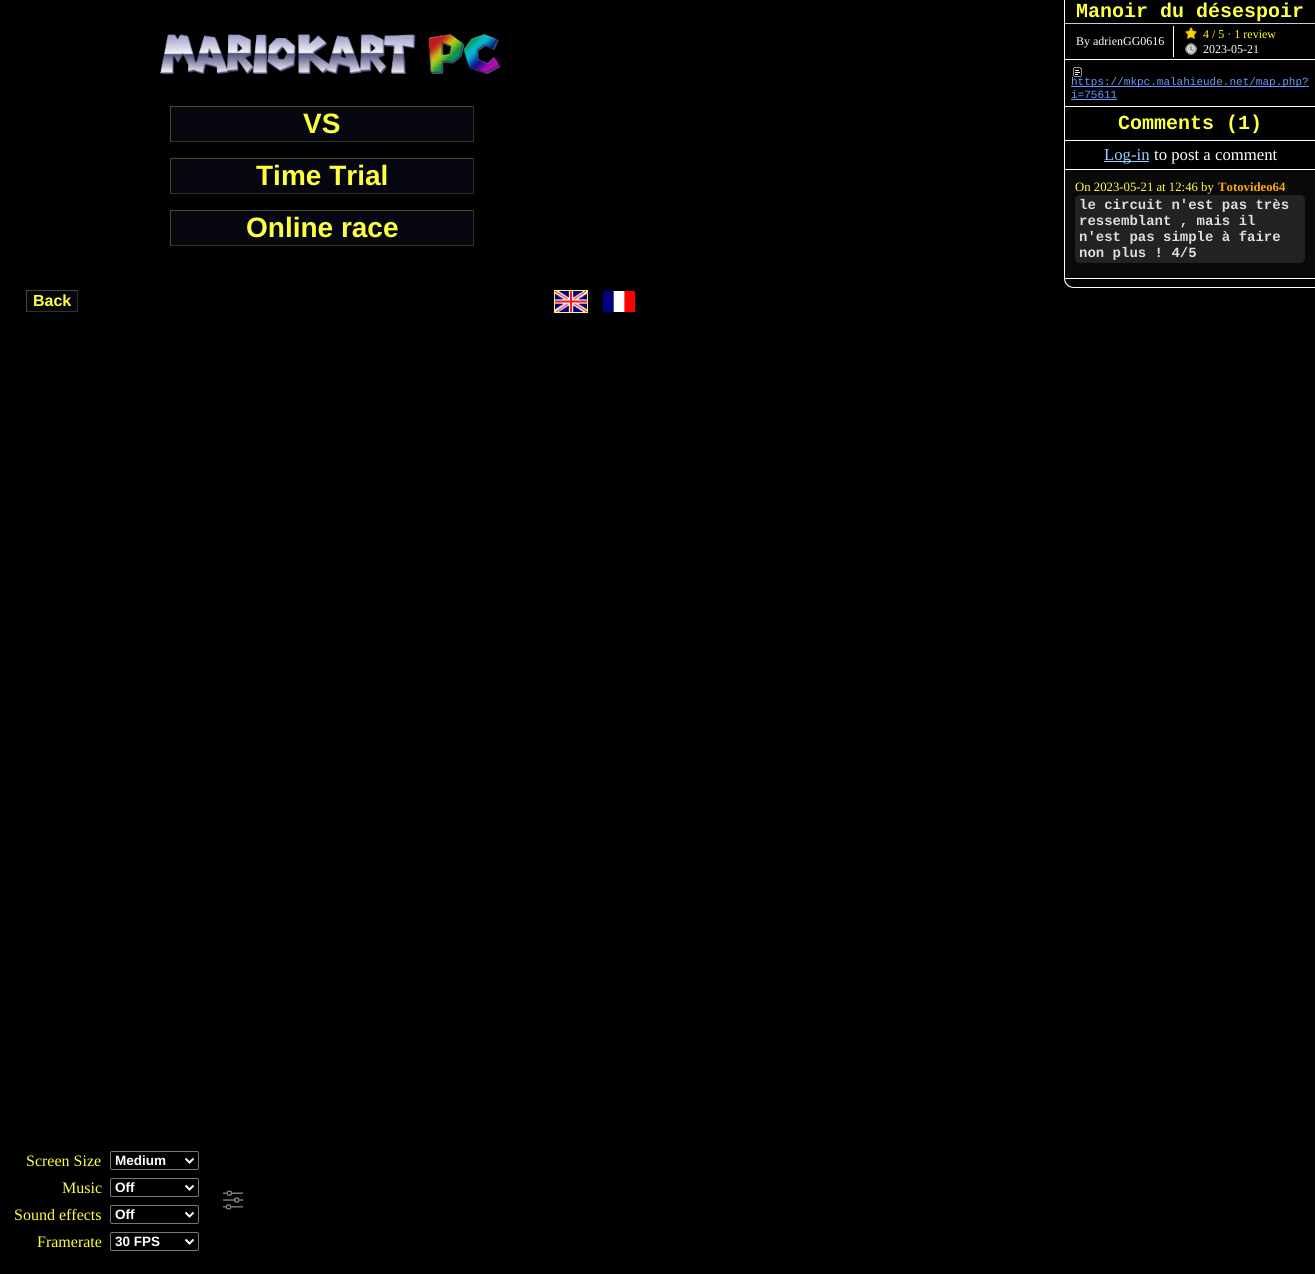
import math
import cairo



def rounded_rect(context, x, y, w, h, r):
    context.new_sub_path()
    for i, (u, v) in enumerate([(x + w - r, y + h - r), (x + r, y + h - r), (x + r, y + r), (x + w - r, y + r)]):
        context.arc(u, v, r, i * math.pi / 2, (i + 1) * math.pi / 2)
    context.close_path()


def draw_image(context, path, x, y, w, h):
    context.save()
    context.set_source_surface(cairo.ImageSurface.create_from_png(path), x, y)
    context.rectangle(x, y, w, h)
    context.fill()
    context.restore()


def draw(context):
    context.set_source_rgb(0, 0, 0)
    context.paint()
    draw_image(context, "images/1.png", 160, 34, 340, 40)
    context.set_source_rgb(6 / 255, 6 / 255, 16 / 255)
    context.rectangle(171, 107, 302, 34)
    context.fill()
    context.set_source_rgb(77 / 255, 73 / 255, 35 / 255)
    context.rectangle(170, 106, 304, 1)
    context.fill()
    context.set_source_rgb(51 / 255, 49 / 255, 23 / 255)
    context.rectangle(473, 106, 1, 36)
    context.fill()
    context.rectangle(170, 141, 304, 1)
    context.fill()
    context.set_source_rgb(77 / 255, 73 / 255, 35 / 255)
    context.rectangle(170, 106, 1, 36)
    context.fill()
    context.set_source_rgb(6 / 255, 6 / 255, 16 / 255)
    context.rectangle(171, 159, 302, 34)
    context.fill()
    context.set_source_rgb(77 / 255, 73 / 255, 35 / 255)
    context.rectangle(170, 158, 304, 1)
    context.fill()
    context.set_source_rgb(51 / 255, 49 / 255, 23 / 255)
    context.rectangle(473, 158, 1, 36)
    context.fill()
    context.rectangle(170, 193, 304, 1)
    context.fill()
    context.set_source_rgb(77 / 255, 73 / 255, 35 / 255)
    context.rectangle(170, 158, 1, 36)
    context.fill()
    context.set_source_rgb(6 / 255, 6 / 255, 16 / 255)
    context.rectangle(171, 211, 302, 34)
    context.fill()
    context.set_source_rgb(77 / 255, 73 / 255, 35 / 255)
    context.rectangle(170, 210, 304, 1)
    context.fill()
    context.set_source_rgb(51 / 255, 49 / 255, 23 / 255)
    context.rectangle(473, 210, 1, 36)
    context.fill()
    context.rectangle(170, 245, 304, 1)
    context.fill()
    context.set_source_rgb(77 / 255, 73 / 255, 35 / 255)
    context.rectangle(170, 210, 1, 36)
    context.fill()
    context.set_source_rgb(6 / 255, 6 / 255, 16 / 255)
    context.rectangle(27, 291, 50, 20)
    context.fill()
    context.set_source_rgb(77 / 255, 73 / 255, 35 / 255)
    context.rectangle(26, 290, 52, 1)
    context.fill()
    context.set_source_rgb(51 / 255, 49 / 255, 23 / 255)
    context.rectangle(77, 290, 1, 22)
    context.fill()
    context.rectangle(26, 311, 52, 1)
    context.fill()
    context.set_source_rgb(77 / 255, 73 / 255, 35 / 255)
    context.rectangle(26, 290, 1, 22)
    context.fill()
    context.rectangle(554.5, 290.5, 33, 22)
    context.set_source_rgb(254 / 255, 1, 63 / 255)
    context.set_line_width(1)
    context.stroke()
    draw_image(context, "images/2.png", 555, 291, 32, 21)
    draw_image(context, "images/3.png", 603, 291, 32, 21)
    context.set_source_rgb(1, 1, 1)
    context.set_fill_rule(cairo.FillRule.EVEN_ODD)
    context.new_path()
    context.move_to(1064, 0)
    context.line_to(1315, 0)
    context.line_to(1315, 288)
    context.line_to(1074, 288)
    context.curve_to(1068, 288, 1064, 284, 1064, 278)
    context.close_path()
    context.move_to(1065, 0)
    context.line_to(1315, 0)
    context.line_to(1315, 287)
    context.line_to(1074, 287)
    context.curve_to(1069, 287, 1065, 283, 1065, 278)
    context.close_path()
    context.fill()
    context.set_source_rgb(204 / 255, 204 / 255, 204 / 255)
    context.rectangle(1065, 23, 250, 1)
    context.fill()
    context.set_source_rgb(1, 1, 1)
    context.rectangle(1065, 59, 250, 1)
    context.fill()
    draw_image(context, "images/4.png", 1185, 27, 12, 12)
    context.rectangle(1173, 26, 1, 31)
    context.fill()
    draw_image(context, "images/5.png", 1185, 43, 12, 12)
    context.rectangle(1065, 106, 250, 1)
    context.fill()
    draw_image(context, "images/6.png", 1073, 67, 9, 10)
    context.set_source_rgb(102 / 255, 153 / 255, 1)
    context.rectangle(1071, 86, 238, 1)
    context.fill()
    context.rectangle(1071, 99, 46, 1)
    context.fill()
    context.set_source_rgb(1, 1, 1)
    context.rectangle(1065, 140, 250, 1)
    context.fill()
    context.rectangle(1065, 169, 250, 1)
    context.fill()
    context.set_source_rgb(153 / 255, 204 / 255, 1)
    context.rectangle(1104, 161, 45, 1)
    context.fill()
    context.set_source_rgb(9 / 255, 9 / 255, 9 / 255)
    context.rectangle(1065, 170, 250, 109)
    context.fill()
    context.set_source_rgb(1, 1, 1)
    context.rectangle(1065, 278, 250, 1)
    context.fill()
    context.set_source_rgb(34 / 255, 34 / 255, 34 / 255)
    rounded_rect(context, 1075, 195, 230, 68, 5)
    context.fill()
    rounded_rect(context, 110.5, 1151.5, 88, 18, 1.5)
    context.set_source_rgb(118 / 255, 118 / 255, 118 / 255)
    context.stroke()
    context.new_path()
    context.move_to(185.5, 1158.5)
    context.line_to(189.5, 1162.5)
    context.line_to(193.5, 1158.5)
    context.set_source_rgb(1, 1, 1)
    context.set_line_width(2)
    context.stroke()
    draw_image(context, "images/7.png", 223, 1190, 20, 20)
    rounded_rect(context, 110.5, 1178.5, 88, 18, 1.5)
    context.set_source_rgb(118 / 255, 118 / 255, 118 / 255)
    context.set_line_width(1)
    context.stroke()
    context.new_path()
    context.move_to(185.5, 1185.5)
    context.line_to(189.5, 1189.5)
    context.line_to(193.5, 1185.5)
    context.set_source_rgb(1, 1, 1)
    context.set_line_width(2)
    context.stroke()
    rounded_rect(context, 110.5, 1205.5, 88, 18, 1.5)
    context.set_source_rgb(118 / 255, 118 / 255, 118 / 255)
    context.set_line_width(1)
    context.stroke()
    context.new_path()
    context.move_to(185.5, 1212.5)
    context.line_to(189.5, 1216.5)
    context.line_to(193.5, 1212.5)
    context.set_source_rgb(1, 1, 1)
    context.set_line_width(2)
    context.stroke()
    rounded_rect(context, 110.5, 1232.5, 88, 18, 1.5)
    context.set_source_rgb(118 / 255, 118 / 255, 118 / 255)
    context.set_line_width(1)
    context.stroke()
    context.new_path()
    context.move_to(185.5, 1239.5)
    context.line_to(189.5, 1243.5)
    context.line_to(193.5, 1239.5)
    context.set_source_rgb(1, 1, 1)
    context.set_line_width(2)
    context.stroke()
    context.select_font_face("Liberation Sans", cairo.FontSlant.NORMAL, cairo.FontWeight.BOLD)
    context.set_font_size(28)
    context.set_source_rgb(254 / 255, 1, 63 / 255)
    context.move_to(303, 133)
    context.show_text("VS")
    context.move_to(256, 185)
    context.show_text("Time Trial")
    context.move_to(246, 237)
    context.show_text("Online race")
    context.set_font_size(16)
    context.move_to(33, 306)
    context.show_text("Back")
    context.select_font_face("Liberation Mono", cairo.FontSlant.NORMAL, cairo.FontWeight.BOLD)
    context.set_font_size(20)
    context.move_to(1076, 17)
    context.show_text("Manoir du désespoir")
    context.select_font_face("Liberation Serif")
    context.set_font_size(12)
    context.set_source_rgb(1, 1, 0)
    context.move_to(1203, 38)
    context.show_text("4 / 5 · 1 review")
    context.set_source_rgb(1, 1, 1)
    context.move_to(1076, 45)
    context.show_text("By adrienGG0616")
    context.move_to(1203, 53)
    context.show_text("2023-05-21")
    context.select_font_face("Liberation Mono")
    context.set_font_size(11)
    context.set_source_rgb(102 / 255, 153 / 255, 1)
    context.move_to(1071, 85)
    context.show_text("https://mkpc.malahieude.net/map.php?")
    context.move_to(1071, 98)
    context.show_text("i=75611")
    context.select_font_face("Liberation Mono", cairo.FontSlant.NORMAL, cairo.FontWeight.BOLD)
    context.set_font_size(20)
    context.set_source_rgb(254 / 255, 1, 63 / 255)
    context.move_to(1118, 129)
    context.show_text("Comments (1)")
    context.select_font_face("Liberation Serif")
    context.set_font_size(16.75)
    context.set_source_rgb(153 / 255, 204 / 255, 1)
    context.move_to(1104, 160)
    context.show_text("Log-in")
    context.set_source_rgb(1, 1, 1)
    context.move_to(1154, 160)
    context.show_text("to post a comment")
    context.set_font_size(12.75)
    context.set_source_rgb(254 / 255, 1, 63 / 255)
    context.move_to(1075, 191)
    context.show_text("On 2023-05-21 at 12:46 by")
    context.select_font_face("Liberation Serif", cairo.FontSlant.NORMAL, cairo.FontWeight.BOLD)
    context.set_source_rgb(1, 170 / 255, 0)
    context.move_to(1218, 191)
    context.show_text("Totovideo64")
    context.select_font_face("Liberation Mono", cairo.FontSlant.NORMAL, cairo.FontWeight.BOLD)
    context.set_font_size(14)
    context.set_source_rgb(221 / 255, 221 / 255, 221 / 255)
    context.move_to(1079, 209)
    context.show_text("le circuit n'est pas très")
    context.move_to(1079, 225)
    context.show_text("ressemblant , mais il")
    context.move_to(1079, 241)
    context.show_text("n'est pas simple à faire")
    context.move_to(1079, 257)
    context.show_text("non plus ! 4/5")
    context.select_font_face("Liberation Serif")
    context.set_font_size(16)
    context.set_source_rgb(254 / 255, 1, 63 / 255)
    context.move_to(26, 1166)
    context.show_text("Screen Size")
    context.select_font_face("Liberation Sans", cairo.FontSlant.NORMAL, cairo.FontWeight.BOLD)
    context.set_font_size(13.5)
    context.set_source_rgb(1, 1, 1)
    context.move_to(115, 1165)
    context.show_text("Medium")
    context.select_font_face("Liberation Serif")
    context.set_font_size(16)
    context.set_source_rgb(254 / 255, 1, 63 / 255)
    context.move_to(62, 1193)
    context.show_text("Music")
    context.select_font_face("Liberation Sans", cairo.FontSlant.NORMAL, cairo.FontWeight.BOLD)
    context.set_font_size(13.5)
    context.set_source_rgb(1, 1, 1)
    context.move_to(115, 1192)
    context.show_text("Off")
    context.select_font_face("Liberation Serif")
    context.set_font_size(16)
    context.set_source_rgb(254 / 255, 1, 63 / 255)
    context.move_to(14, 1220)
    context.show_text("Sound effects")
    context.select_font_face("Liberation Sans", cairo.FontSlant.NORMAL, cairo.FontWeight.BOLD)
    context.set_font_size(13.5)
    context.set_source_rgb(1, 1, 1)
    context.move_to(115, 1219)
    context.show_text("Off")
    context.select_font_face("Liberation Serif")
    context.set_font_size(16)
    context.set_source_rgb(254 / 255, 1, 63 / 255)
    context.move_to(37, 1247)
    context.show_text("Framerate")
    context.select_font_face("Liberation Sans", cairo.FontSlant.NORMAL, cairo.FontWeight.BOLD)
    context.set_font_size(13.5)
    context.set_source_rgb(1, 1, 1)
    context.move_to(115, 1246)
    context.show_text("30 FPS")


surface = cairo.ImageSurface(cairo.Format.RGB24, 1315, 1274)
context = cairo.Context(surface)
options = cairo.FontOptions()
options.set_hint_metrics(cairo.HintMetrics.OFF)
options.set_hint_style(cairo.HintStyle.NONE)
context.set_font_options(options)
context.set_miter_limit(4)
draw(context)
surface.write_to_png("out.png")
